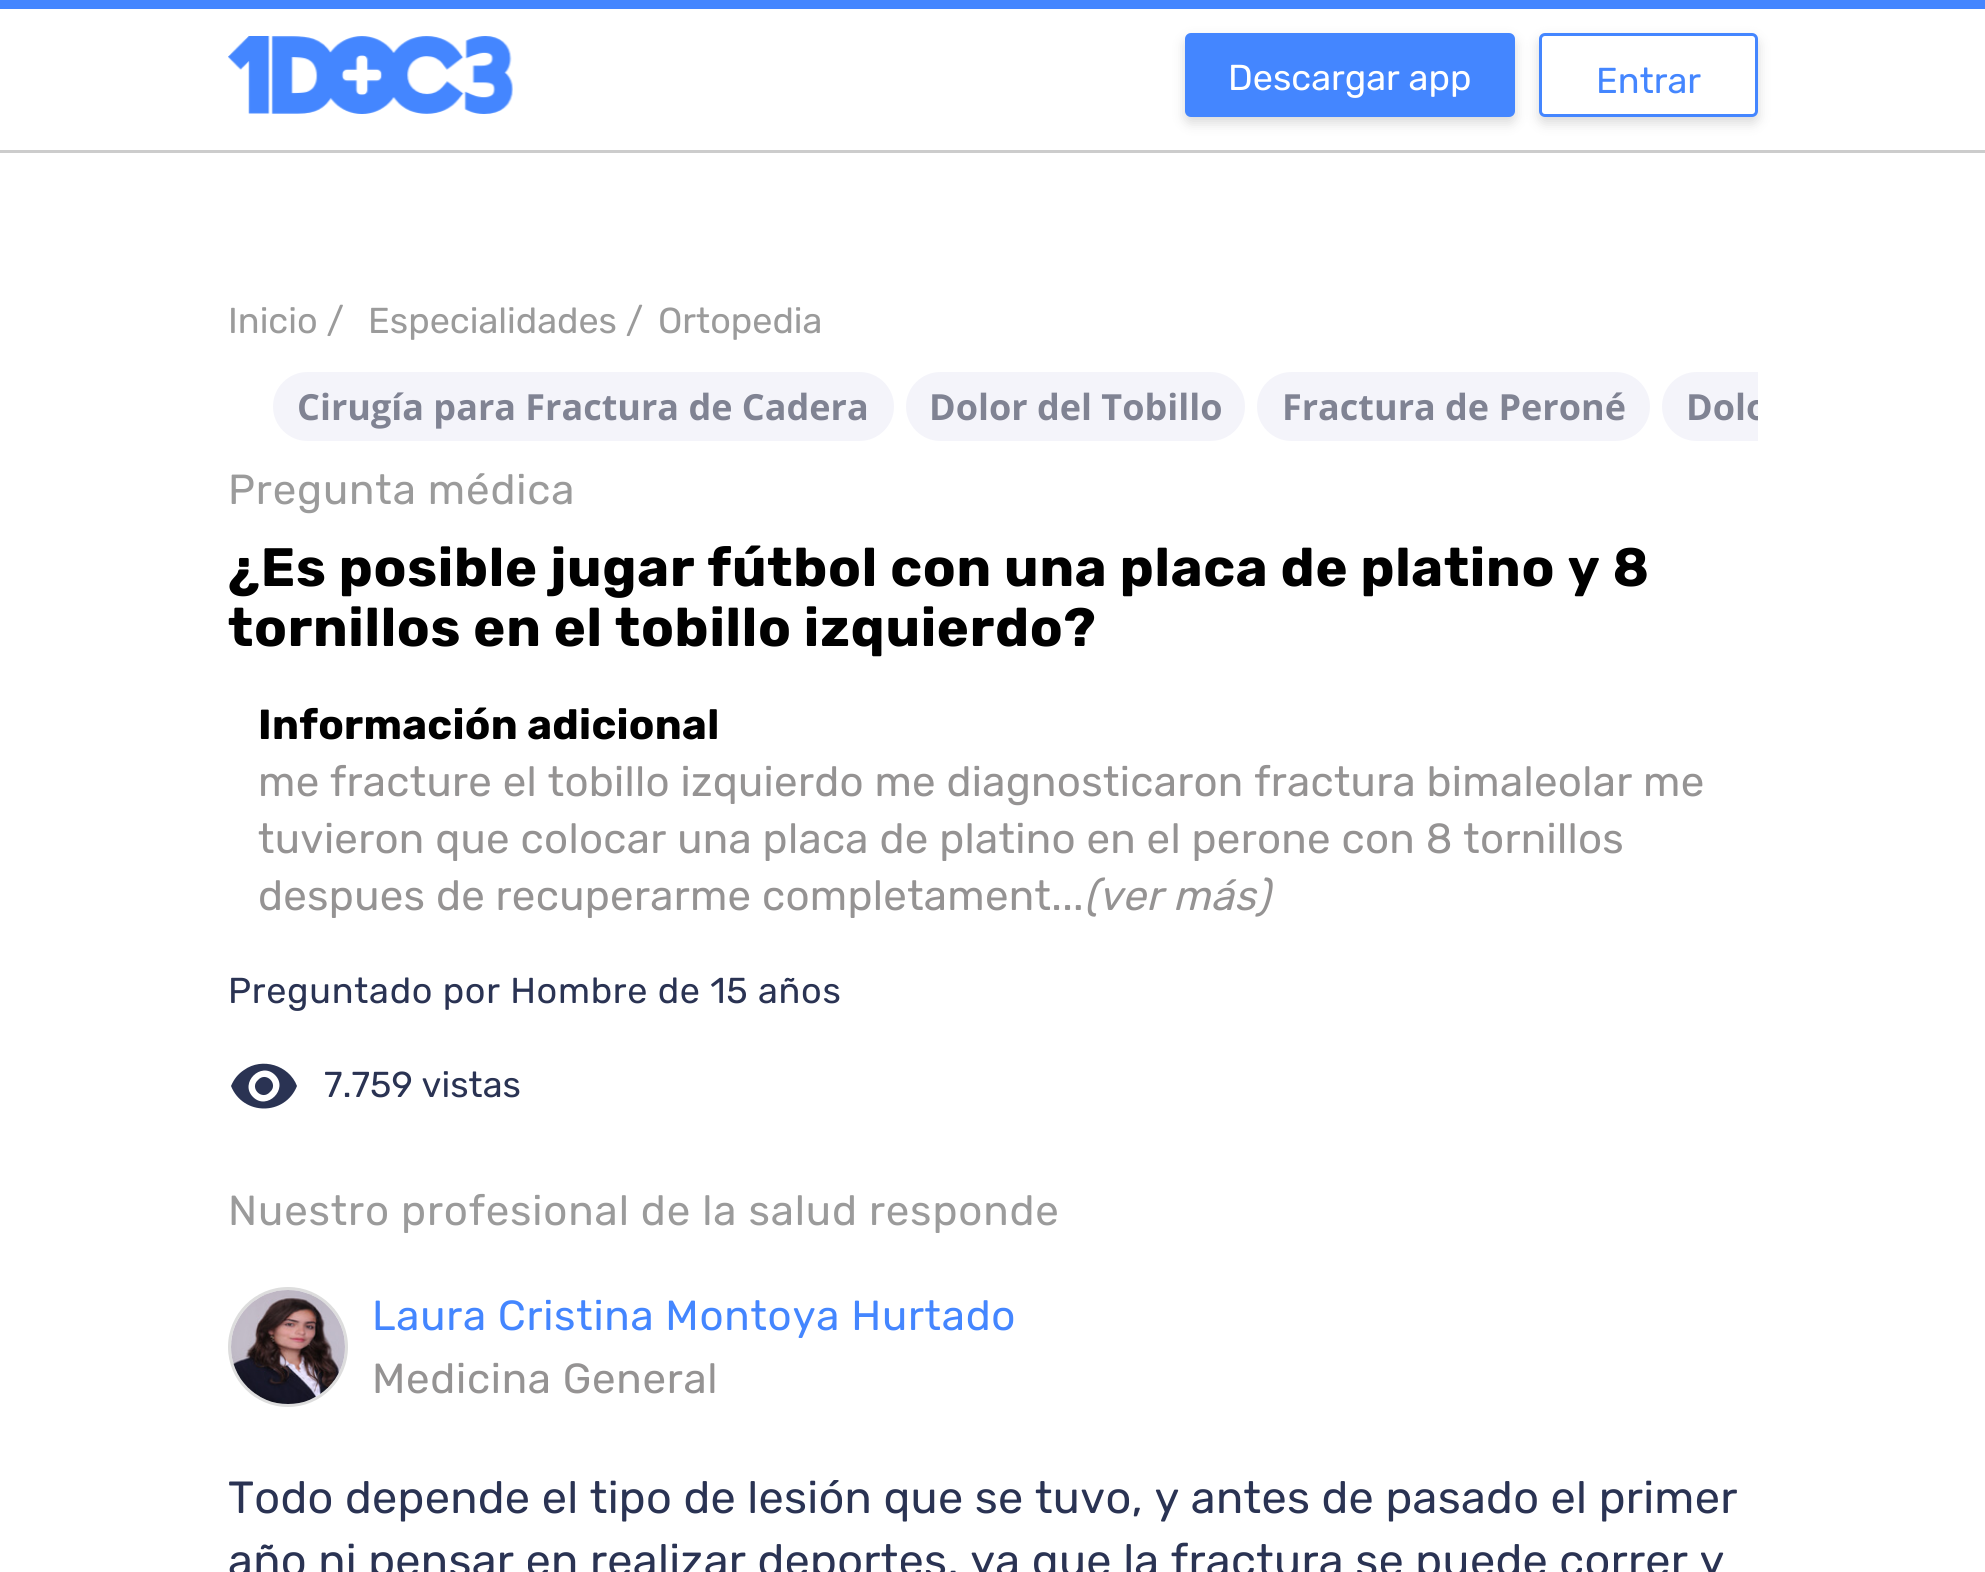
import math
import cairo



def draw_spaced(context, x, y, s, letter, word):
    context.move_to(x, y)
    for ch in s:
        context.show_text(ch)
        context.rel_move_to(letter + word * (ch == ' '), 0)


def rounded_rect(context, x, y, w, h, r):
    context.new_sub_path()
    for i, (u, v) in enumerate([(x + w - r, y + h - r), (x + r, y + h - r), (x + r, y + r), (x + w - r, y + r)]):
        context.arc(u, v, r, i * math.pi / 2, (i + 1) * math.pi / 2)
    context.close_path()


def draw_shadow(context, x, y, w, h, r, blur, alpha):
    context.push_group_with_content(cairo.Content.ALPHA)
    context.set_operator(cairo.Operator.SOURCE)
    for i in range(15, -16, -2):
        e = blur * i / 6
        if min(w, h) + 2 * e > 0:
            context.set_source_rgba(0, 0, 0, alpha * math.erfc((i - 1) / 8.5) / 2)
            rounded_rect(context, x - e, y - e, w + 2 * e, h + 2 * e, max(0, min(r + e + blur * .6, min(w, h) / 2 + e)))
            context.fill()
    context.mask(context.pop_group())


def draw_image(context, path, x, y, w, h):
    context.save()
    context.set_source_surface(cairo.ImageSurface.create_from_png(path), x, y)
    context.rectangle(x, y, w, h)
    context.fill()
    context.restore()


def draw(context):
    context.set_source_rgb(1, 1, 1)
    context.paint()
    context.set_source_rgb(204 / 255, 204 / 255, 204 / 255)
    context.rectangle(0, 150, 1985, 3)
    context.fill()
    context.set_source_rgb(68 / 255, 134 / 255, 1)
    context.rectangle(0, 0, 1985, 9)
    context.fill()
    draw_image(context, "images/1.png", 228, 36, 285, 78)
    context.set_source_rgb(202 / 255, 202 / 255, 202 / 255)
    draw_shadow(context, 1185, 39, 330, 84, 6, 6, 0.7)
    context.set_source_rgb(68 / 255, 134 / 255, 1)
    rounded_rect(context, 1185, 33, 330, 84, 6)
    context.fill()
    context.set_source_rgb(202 / 255, 202 / 255, 202 / 255)
    draw_shadow(context, 1539, 39, 219, 84, 6, 6, 0.7)
    context.set_source_rgb(1, 1, 1)
    rounded_rect(context, 1540.5, 34.5, 216, 81, 4.5)
    context.fill_preserve()
    context.set_source_rgb(68 / 255, 134 / 255, 1)
    context.set_line_width(3)
    context.stroke()
    context.set_source_rgb(244 / 255, 244 / 255, 250 / 255)
    rounded_rect(context, 273, 372, 621, 69, 34.5)
    context.fill()
    rounded_rect(context, 906, 372, 339, 69, 34.5)
    context.fill()
    rounded_rect(context, 1257, 372, 393, 69, 34.5)
    context.fill()
    context.new_path()
    context.move_to(1696.5, 372)
    context.line_to(1758, 372)
    context.line_to(1758, 441)
    context.line_to(1696.5, 441)
    context.curve_to(1677.5, 441, 1662, 425.5, 1662, 406.5)
    context.curve_to(1662, 387.5, 1677.5, 372, 1696.5, 372)
    context.close_path()
    context.fill()
    context.set_source_rgb(42 / 255, 51 / 255, 83 / 255)
    context.new_path()
    context.move_to(258, 1080)
    context.curve_to(266, 1071, 279, 1084, 270, 1092)
    context.curve_to(262, 1101, 249, 1088, 258, 1080)
    context.close_path()
    context.move_to(253, 1097)
    context.curve_to(267, 1111, 289, 1089, 275, 1075)
    context.curve_to(261, 1061, 239, 1083, 253, 1097)
    context.close_path()
    context.move_to(244, 1070)
    context.curve_to(262, 1057, 289, 1065, 297, 1086)
    context.curve_to(285, 1116, 243, 1116, 231, 1086)
    context.curve_to(234, 1079, 238, 1074, 244, 1070)
    context.close_path()
    context.fill()
    context.arc(288, 1347, 58.5, 0, 2 * math.pi)
    context.set_source_rgb(221 / 255, 221 / 255, 221 / 255)
    context.stroke()
    draw_image(context, "images/2.png", 231, 1290, 114, 114)
    context.select_font_face("Rubik")
    context.set_font_size(36)
    context.set_source_rgb(1, 1, 1)
    context.move_to(1228, 90)
    context.show_text("Descargar app")
    context.set_source_rgb(68 / 255, 134 / 255, 1)
    context.move_to(1596, 93)
    context.show_text("Entrar")
    context.set_source_rgb(155 / 255, 155 / 255, 155 / 255)
    context.move_to(228, 333)
    context.show_text("Inicio /")
    context.move_to(368, 333)
    context.show_text("Especialidades /")
    context.move_to(658, 333)
    context.show_text("Ortopedia")
    context.select_font_face("Open Sans", cairo.FontSlant.NORMAL, cairo.FontWeight.BOLD)
    context.set_source_rgb(128 / 255, 131 / 255, 147 / 255)
    context.move_to(297, 420)
    context.show_text("Cirugía para Fractura de Cadera")
    context.move_to(929, 420)
    context.show_text("Dolor del Tobillo")
    context.move_to(1282, 420)
    context.show_text("Fractura de Peroné")
    context.save()
    context.rectangle(273, 372, 1485, 90)
    context.clip()
    context.move_to(1686, 420)
    context.show_text("Dolo")
    context.restore()
    context.select_font_face("Rubik")
    context.set_font_size(42)
    context.set_source_rgb(155 / 255, 155 / 255, 155 / 255)
    draw_spaced(context, 228, 504, "Pregunta médica", 0.85, 0)
    context.select_font_face("Rubik", cairo.FontSlant.NORMAL, cairo.FontWeight.BOLD)
    context.set_font_size(54)
    context.set_source_rgb(0, 0, 0)
    draw_spaced(context, 228, 586, "¿Es posible jugar fútbol con una placa de platino y 8", 0.72, 0)
    draw_spaced(context, 228, 646, "tornillos en el tobillo izquierdo?", 0.72, 0)
    context.set_font_size(42)
    draw_spaced(context, 258, 739, "Información adicional", 0.3, 0)
    context.select_font_face("Rubik")
    context.set_source_rgb(149 / 255, 147 / 255, 147 / 255)
    draw_spaced(context, 258, 796, "me fracture el tobillo izquierdo me diagnosticaron fractura bimaleolar me", 0.3, 0)
    draw_spaced(context, 258, 853, "tuvieron que colocar una placa de platino en el perone con 8 tornillos", 0.3, 0)
    draw_spaced(context, 258, 910, "despues de recuperarme completament...", 0.3, 0)
    context.select_font_face("Rubik", cairo.FontSlant.ITALIC)
    draw_spaced(context, 1084, 910, "(ver más)", 0.3, 0)
    context.select_font_face("Rubik")
    context.set_font_size(36)
    context.set_source_rgb(42 / 255, 51 / 255, 83 / 255)
    draw_spaced(context, 228, 1003, "Preguntado por Hombre de 15 años", 0.72, 0)
    context.move_to(324, 1097)
    context.show_text("7.759 vistas")
    context.set_font_size(42)
    context.set_source_rgb(155 / 255, 155 / 255, 155 / 255)
    draw_spaced(context, 228, 1225, "Nuestro profesional de la salud responde", 0.85, 0)
    context.set_source_rgb(68 / 255, 134 / 255, 1)
    draw_spaced(context, 372, 1330, "Laura Cristina Montoya Hurtado", 0.72, 0)
    context.set_source_rgb(149 / 255, 147 / 255, 147 / 255)
    draw_spaced(context, 372, 1393, "Medicina General", 0.72, 0)
    context.set_font_size(45)
    context.set_source_rgb(42 / 255, 51 / 255, 83 / 255)
    draw_spaced(context, 228, 1513, "Todo depende el tipo de lesión que se tuvo, y antes de pasado el primer", 0.3, 0)
    draw_spaced(context, 228, 1576, "año ni pensar en realizar deportes, ya que la fractura se puede correr y", 0.3, 0)


surface = cairo.ImageSurface(cairo.Format.RGB24, 1985, 1572)
context = cairo.Context(surface)
options = cairo.FontOptions()
options.set_hint_metrics(cairo.HintMetrics.OFF)
options.set_hint_style(cairo.HintStyle.NONE)
context.set_font_options(options)
context.set_miter_limit(4)
draw(context)
surface.write_to_png("out.png")
